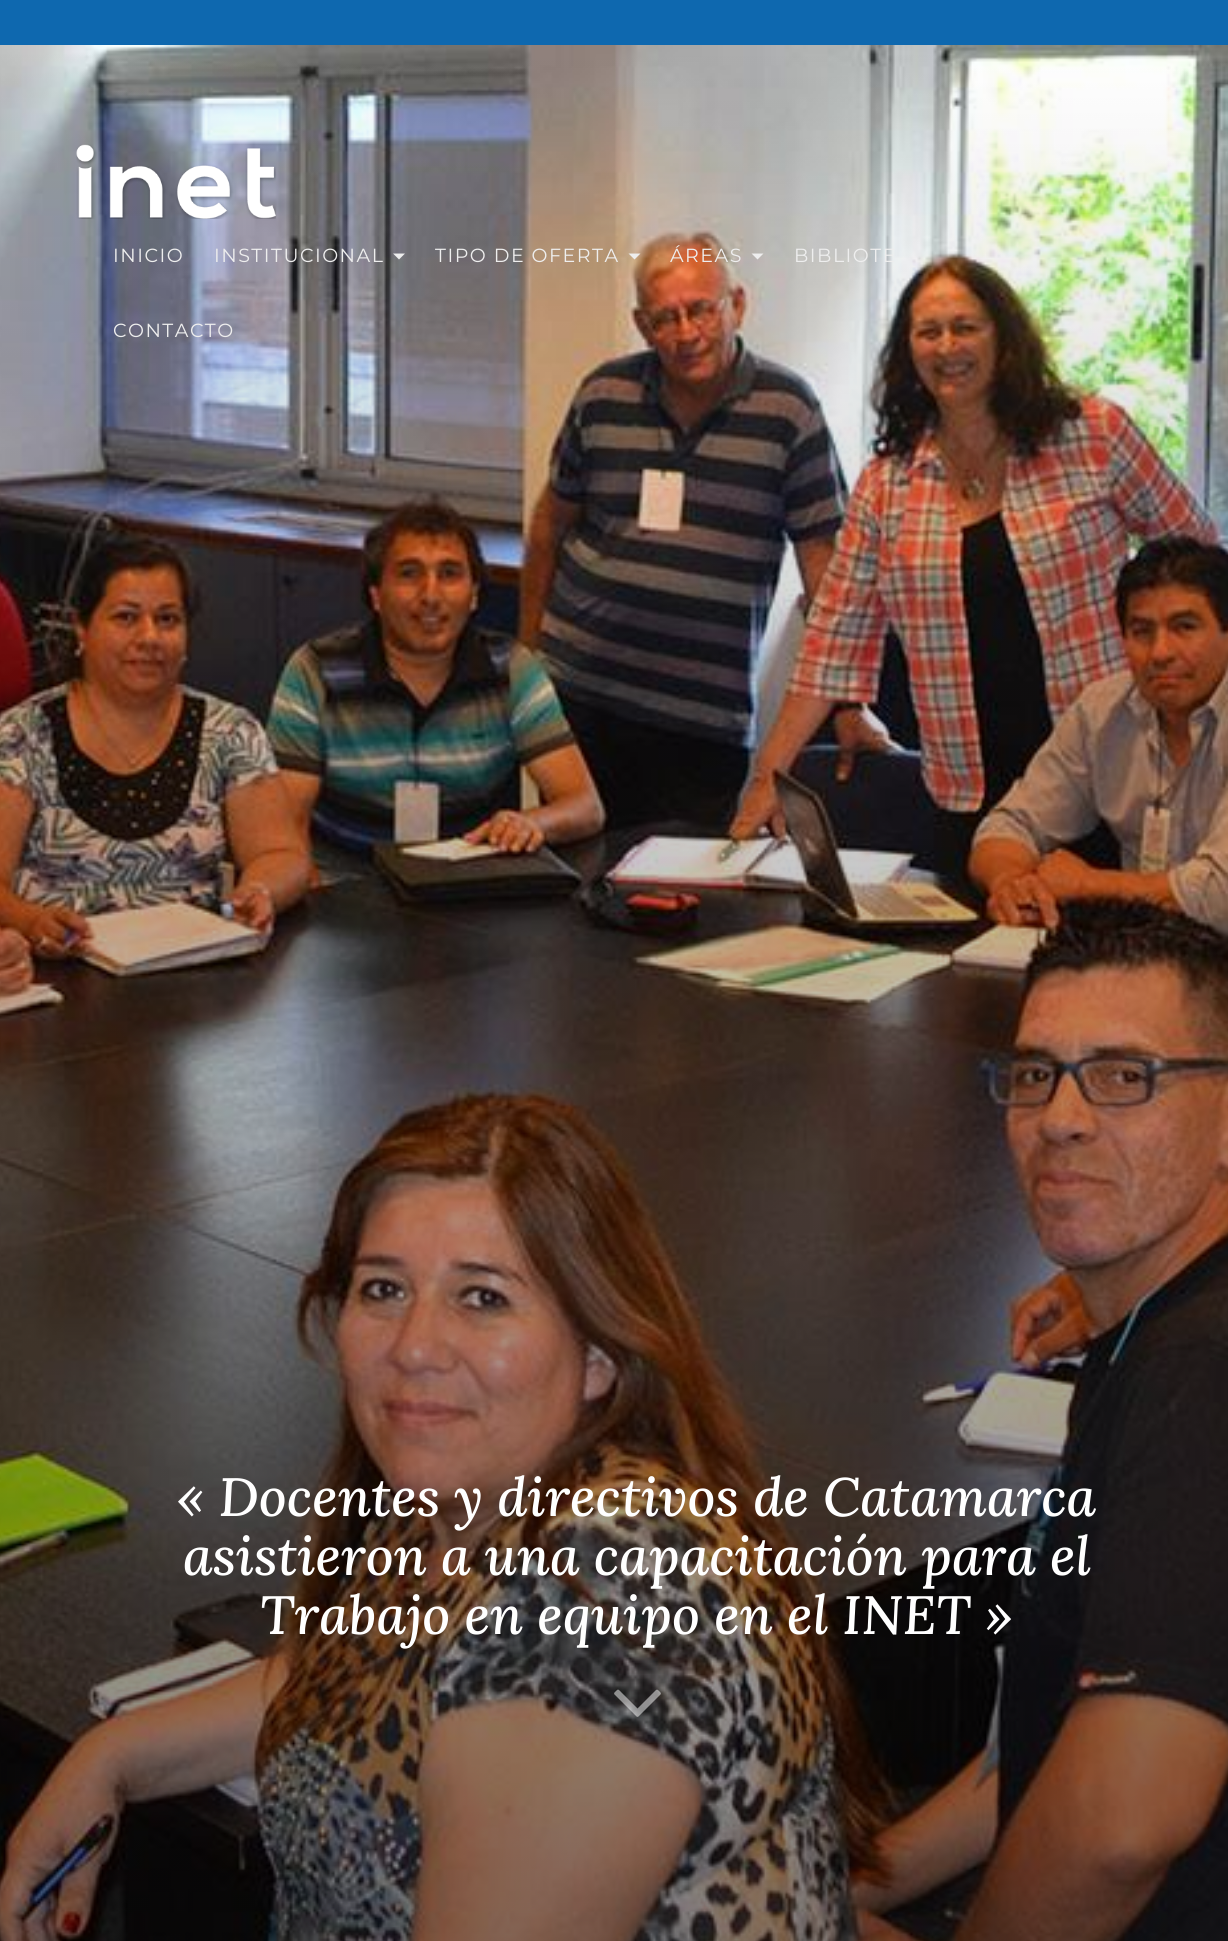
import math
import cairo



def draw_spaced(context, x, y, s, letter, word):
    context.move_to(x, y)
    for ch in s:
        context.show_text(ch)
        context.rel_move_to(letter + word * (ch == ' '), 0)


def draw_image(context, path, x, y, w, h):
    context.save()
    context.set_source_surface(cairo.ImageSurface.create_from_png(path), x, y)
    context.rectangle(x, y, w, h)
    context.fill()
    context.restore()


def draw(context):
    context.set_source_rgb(1, 1, 1)
    context.paint()
    context.set_source_rgb(14 / 255, 104 / 255, 175 / 255)
    context.rectangle(0, 0, 1228, 45)
    context.fill()
    draw_image(context, "images/1.png", 0, 45, 1228, 1896)
    draw_image(context, "images/2.png", 76, 144, 200, 75)
    context.set_source_rgb(238 / 255, 238 / 255, 238 / 255)
    context.new_path()
    context.move_to(393, 253.5)
    context.line_to(405, 253.5)
    context.line_to(399, 259.5)
    context.close_path()
    context.fill()
    context.new_path()
    context.move_to(628.5, 253.5)
    context.line_to(640.5, 253.5)
    context.line_to(634.5, 259.5)
    context.close_path()
    context.fill()
    context.new_path()
    context.move_to(751.5, 253.5)
    context.line_to(763.5, 253.5)
    context.line_to(757.5, 259.5)
    context.close_path()
    context.fill()
    draw_image(context, "images/3.png", 614, 1689, 47, 28)
    context.select_font_face("Montserrat")
    context.set_font_size(19)
    draw_spaced(context, 113, 262, "INICIO", 1.5, 0)
    draw_spaced(context, 214, 262, "INSTITUCIONAL", 1.5, 0)
    draw_spaced(context, 435, 262, "TIPO DE OFERTA", 1.5, 0)
    draw_spaced(context, 670, 262, "ÁREAS", 1.5, 0)
    draw_spaced(context, 794, 262, "BIBLIOTE", 1.5, 0)
    draw_spaced(context, 113, 337, "CONTACTO", 1.5, 0)
    context.select_font_face("Lora Medium", cairo.FontSlant.ITALIC)
    context.set_font_size(54)
    context.set_source_rgb(1, 1, 1)
    context.move_to(177, 1516)
    context.show_text("« Docentes y directivos de Catamarca")
    context.move_to(183, 1575)
    context.show_text("asistieron a una capacitación para el")
    context.move_to(260, 1634)
    context.show_text("Trabajo en equipo en el INET »")


surface = cairo.ImageSurface(cairo.Format.RGB24, 1228, 1941)
context = cairo.Context(surface)
options = cairo.FontOptions()
options.set_hint_metrics(cairo.HintMetrics.OFF)
options.set_hint_style(cairo.HintStyle.NONE)
context.set_font_options(options)
context.set_miter_limit(4)
draw(context)
surface.write_to_png("out.png")
